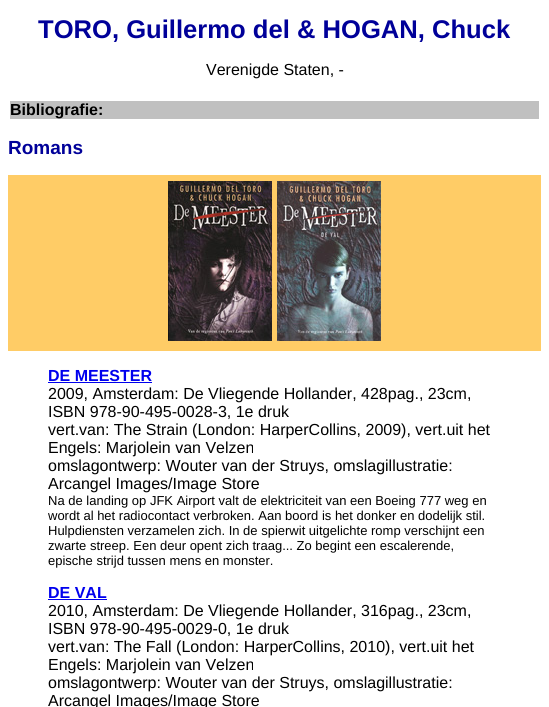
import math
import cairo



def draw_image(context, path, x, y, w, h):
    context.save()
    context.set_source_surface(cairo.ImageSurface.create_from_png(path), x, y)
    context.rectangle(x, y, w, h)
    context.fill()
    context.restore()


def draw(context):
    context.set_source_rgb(1, 1, 1)
    context.paint()
    context.set_source_rgb(192 / 255, 192 / 255, 192 / 255)
    context.rectangle(10, 101, 529, 18)
    context.fill()
    context.set_source_rgb(1, 204 / 255, 102 / 255)
    context.rectangle(8, 175, 533, 176)
    context.fill()
    draw_image(context, "images/1.png", 168, 181, 104, 160)
    draw_image(context, "images/2.png", 277, 181, 104, 160)
    context.set_source_rgb(0, 0, 238 / 255)
    context.rectangle(48, 382, 104, 1)
    context.fill()
    context.rectangle(48, 599, 59, 1)
    context.fill()
    context.select_font_face("Liberation Sans", cairo.FontSlant.NORMAL, cairo.FontWeight.BOLD)
    context.set_font_size(25.6)
    context.set_source_rgb(0, 0, 153 / 255)
    context.move_to(38, 38)
    context.show_text("TORO, Guillermo del & HOGAN, Chuck")
    context.select_font_face("Liberation Sans")
    context.set_font_size(16)
    context.set_source_rgb(0, 0, 0)
    context.move_to(206, 75)
    context.show_text("Verenigde Staten, -")
    context.select_font_face("Liberation Sans", cairo.FontSlant.NORMAL, cairo.FontWeight.BOLD)
    context.move_to(10, 115)
    context.show_text("Bibliografie:")
    context.set_font_size(19)
    context.set_source_rgb(0, 0, 153 / 255)
    context.move_to(8, 154)
    context.show_text("Romans")
    context.set_font_size(16)
    context.set_source_rgb(0, 0, 238 / 255)
    context.move_to(48, 381)
    context.show_text("DE MEESTER")
    context.select_font_face("Liberation Sans")
    context.set_source_rgb(0, 0, 0)
    context.move_to(48, 399)
    context.show_text("2009, Amsterdam: De Vliegende Hollander, 428pag., 23cm,")
    context.move_to(48, 417)
    context.show_text("ISBN 978-90-495-0028-3, 1e druk")
    context.move_to(48, 435)
    context.show_text("vert.van: The Strain (London: HarperCollins, 2009), vert.uit het")
    context.move_to(48, 453)
    context.show_text("Engels: Marjolein van Velzen")
    context.move_to(48, 471)
    context.show_text("omslagontwerp: Wouter van der Struys, omslagillustratie:")
    context.move_to(48, 489)
    context.show_text("Arcangel Images/Image Store")
    context.set_font_size(13)
    context.move_to(48, 505)
    context.show_text("Na de landing op JFK Airport valt de elektriciteit van een Boeing 777 weg en")
    context.move_to(48, 520)
    context.show_text("wordt al het radiocontact verbroken. Aan boord is het donker en dodelijk stil.")
    context.move_to(48, 535)
    context.show_text("Hulpdiensten verzamelen zich. In de spierwit uitgelichte romp verschijnt een")
    context.move_to(48, 550)
    context.show_text("zwarte streep. Een deur opent zich traag... Zo begint een escalerende,")
    context.move_to(48, 565)
    context.show_text("epische strijd tussen mens en monster.")
    context.select_font_face("Liberation Sans", cairo.FontSlant.NORMAL, cairo.FontWeight.BOLD)
    context.set_font_size(16)
    context.set_source_rgb(0, 0, 238 / 255)
    context.move_to(48, 598)
    context.show_text("DE VAL")
    context.select_font_face("Liberation Sans")
    context.set_source_rgb(0, 0, 0)
    context.move_to(48, 616)
    context.show_text("2010, Amsterdam: De Vliegende Hollander, 316pag., 23cm,")
    context.move_to(48, 634)
    context.show_text("ISBN 978-90-495-0029-0, 1e druk")
    context.move_to(48, 652)
    context.show_text("vert.van: The Fall (London: HarperCollins, 2010), vert.uit het")
    context.move_to(48, 670)
    context.show_text("Engels: Marjolein van Velzen")
    context.move_to(48, 688)
    context.show_text("omslagontwerp: Wouter van der Struys, omslagillustratie:")
    context.move_to(48, 706)
    context.show_text("Arcangel Images/Image Store")


surface = cairo.ImageSurface(cairo.Format.RGB24, 549, 707)
context = cairo.Context(surface)
options = cairo.FontOptions()
options.set_hint_metrics(cairo.HintMetrics.OFF)
options.set_hint_style(cairo.HintStyle.NONE)
context.set_font_options(options)
context.set_miter_limit(4)
draw(context)
surface.write_to_png("out.png")
